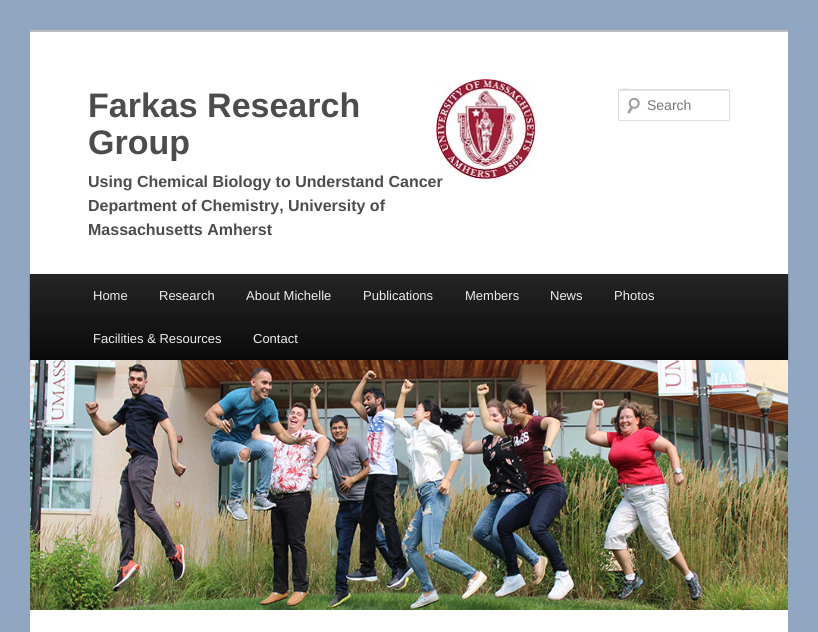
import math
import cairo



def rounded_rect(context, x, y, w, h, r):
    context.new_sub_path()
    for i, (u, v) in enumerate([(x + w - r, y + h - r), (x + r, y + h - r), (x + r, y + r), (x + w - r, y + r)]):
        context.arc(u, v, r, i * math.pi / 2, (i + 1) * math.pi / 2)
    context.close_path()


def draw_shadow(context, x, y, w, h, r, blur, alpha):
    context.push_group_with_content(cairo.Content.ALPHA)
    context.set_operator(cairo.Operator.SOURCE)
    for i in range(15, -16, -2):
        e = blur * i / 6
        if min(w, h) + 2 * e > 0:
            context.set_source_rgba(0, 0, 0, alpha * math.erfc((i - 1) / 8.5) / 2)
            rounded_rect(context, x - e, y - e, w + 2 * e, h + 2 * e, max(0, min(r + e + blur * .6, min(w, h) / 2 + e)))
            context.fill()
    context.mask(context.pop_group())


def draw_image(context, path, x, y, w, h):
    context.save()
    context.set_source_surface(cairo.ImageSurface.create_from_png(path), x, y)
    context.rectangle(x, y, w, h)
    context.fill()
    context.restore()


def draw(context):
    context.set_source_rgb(145 / 255, 166 / 255, 193 / 255)
    context.paint()
    context.set_source_rgb(1, 1, 1)
    context.rectangle(30, 32, 758, 600)
    context.fill()
    context.set_source_rgb(187 / 255, 187 / 255, 187 / 255)
    context.rectangle(30, 30, 758, 2)
    context.fill()
    draw_image(context, "images/1.png", 436, 79, 99, 100)
    draw_image(context, "images/2.png", 627, 97, 13, 17)
    context.set_source_rgb(230 / 255, 230 / 255, 230 / 255)
    context.new_path()
    context.move_to(620, 91)
    context.line_to(729, 91)
    context.line_to(729, 92)
    context.line_to(728, 90)
    context.line_to(638, 90)
    context.curve_to(634, 90, 619, 85, 619, 92)
    context.curve_to(619, 91, 619, 91, 620, 91)
    context.close_path()
    context.fill()
    rounded_rect(context, 618.5, 89.5, 111, 31, 1.5)
    context.set_source_rgb(221 / 255, 221 / 255, 221 / 255)
    context.set_line_width(1)
    context.stroke()
    context.set_source_rgb(0, 0, 0)
    draw_shadow(context, 30, 275, 758, 86, 0, 1, 0.4)
    gradient = cairo.LinearGradient(409, 274, 409, 360)
    gradient.add_color_stop_rgba(0, 37 / 255, 37 / 255, 37 / 255, 1)
    gradient.add_color_stop_rgba(1, 10 / 255, 10 / 255, 10 / 255, 1)
    context.set_source(gradient)
    context.rectangle(30, 274, 758, 86)
    context.fill()
    draw_image(context, "images/3.png", 30, 360, 758, 250)
    context.select_font_face("Liberation Sans", cairo.FontSlant.NORMAL, cairo.FontWeight.BOLD)
    context.set_font_size(34)
    context.set_source_rgb(76 / 255, 76 / 255, 76 / 255)
    context.move_to(88, 117)
    context.show_text("Farkas Research")
    context.move_to(88, 154)
    context.show_text("Group")
    context.set_font_size(16)
    context.move_to(88, 187)
    context.show_text("Using Chemical Biology to Understand Cancer")
    context.move_to(88, 211)
    context.show_text("Department of Chemistry, University of")
    context.move_to(88, 235)
    context.show_text("Massachusetts Amherst")
    context.select_font_face("Liberation Sans")
    context.set_font_size(14)
    context.set_source_rgb(117 / 255, 117 / 255, 117 / 255)
    context.move_to(647, 110)
    context.show_text("Search")
    context.set_font_size(13)
    context.set_source_rgb(238 / 255, 238 / 255, 238 / 255)
    context.move_to(93, 300)
    context.show_text("Home")
    context.move_to(159, 300)
    context.show_text("Research")
    context.move_to(246, 300)
    context.show_text("About Michelle")
    context.move_to(363, 300)
    context.show_text("Publications")
    context.move_to(465, 300)
    context.show_text("Members")
    context.move_to(550, 300)
    context.show_text("News")
    context.move_to(614, 300)
    context.show_text("Photos")
    context.move_to(93, 343)
    context.show_text("Facilities & Resources")
    context.move_to(253, 343)
    context.show_text("Contact")


surface = cairo.ImageSurface(cairo.Format.RGB24, 818, 632)
context = cairo.Context(surface)
options = cairo.FontOptions()
options.set_hint_metrics(cairo.HintMetrics.OFF)
options.set_hint_style(cairo.HintStyle.NONE)
context.set_font_options(options)
context.set_miter_limit(4)
draw(context)
surface.write_to_png("out.png")
